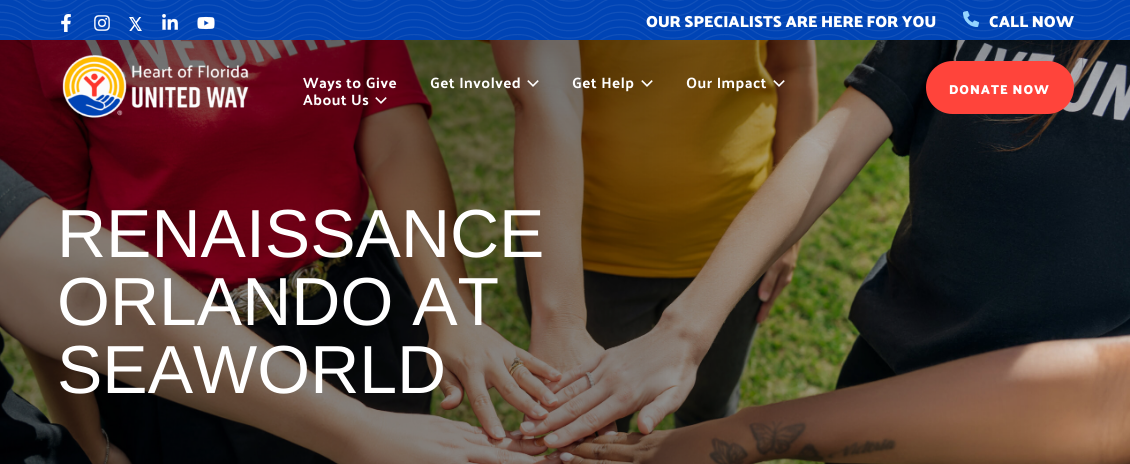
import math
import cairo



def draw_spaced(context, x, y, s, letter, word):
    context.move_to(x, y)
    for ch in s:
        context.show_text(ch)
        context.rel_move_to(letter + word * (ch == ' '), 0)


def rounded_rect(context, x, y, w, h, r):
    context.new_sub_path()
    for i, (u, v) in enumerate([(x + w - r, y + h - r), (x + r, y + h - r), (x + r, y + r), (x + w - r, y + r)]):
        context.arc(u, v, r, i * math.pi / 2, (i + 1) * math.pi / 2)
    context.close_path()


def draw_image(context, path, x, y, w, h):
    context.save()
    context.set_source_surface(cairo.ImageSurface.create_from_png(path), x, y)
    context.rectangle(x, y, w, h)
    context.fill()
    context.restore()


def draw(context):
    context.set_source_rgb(1, 1, 1)
    context.paint()
    context.set_source_rgb(0, 68 / 255, 181 / 255)
    context.rectangle(0, 0, 1130, 40)
    context.fill()
    draw_image(context, "images/1.png", 0, 0, 1130, 40)
    draw_image(context, "images/2.png", 61, 14, 10, 18)
    draw_image(context, "images/3.png", 94, 15, 16, 16)
    draw_image(context, "images/4.png", 129, 17, 13, 14)
    draw_image(context, "images/5.png", 162, 14, 16, 16)
    draw_image(context, "images/6.png", 197, 16, 18, 14)
    draw_image(context, "images/7.png", 963, 11, 16, 16)
    draw_image(context, "images/13.png", 0, 40, 1130, 424)
    draw_image(context, "images/8.png", 62, 55, 187, 63)
    draw_image(context, "images/9.png", 527, 80, 12, 7)
    draw_image(context, "images/10.png", 641, 80, 12, 7)
    draw_image(context, "images/11.png", 773, 80, 12, 7)
    draw_image(context, "images/12.png", 375, 97, 12, 7)
    context.set_source_rgb(1, 68 / 255, 59 / 255)
    rounded_rect(context, 927, 62, 146, 51, 25.5)
    context.fill_preserve()
    context.stroke()
    context.select_font_face("Palanquin Dark", cairo.FontSlant.NORMAL, cairo.FontWeight.BOLD)
    context.set_font_size(16)
    context.set_source_rgb(1, 1, 1)
    context.move_to(646, 27)
    context.show_text("OUR SPECIALISTS ARE HERE FOR YOU")
    context.move_to(989, 27)
    context.show_text("CALL NOW")
    context.select_font_face("Palanquin Dark")
    context.set_font_size(15)
    draw_spaced(context, 303, 88, "Ways to Give", 0.5, 0)
    draw_spaced(context, 430, 88, "Get Involved", 0.5, 0)
    draw_spaced(context, 572, 88, "Get Help", 0.5, 0)
    draw_spaced(context, 686, 88, "Our Impact", 0.5, 0)
    draw_spaced(context, 303, 105, "About Us", 0.5, 0)
    context.select_font_face("Palanquin Dark", cairo.FontSlant.NORMAL, cairo.FontWeight.BOLD)
    context.set_font_size(13)
    draw_spaced(context, 949, 94, "DONATE NOW", 1, 0)
    context.select_font_face("Liberation Sans")
    context.set_font_size(68)
    context.move_to(57, 257)
    context.show_text("RENAISSANCE")
    context.move_to(57, 325)
    context.show_text("ORLANDO AT")
    context.move_to(57, 393)
    context.show_text("SEAWORLD")


surface = cairo.ImageSurface(cairo.Format.RGB24, 1130, 464)
context = cairo.Context(surface)
options = cairo.FontOptions()
options.set_hint_metrics(cairo.HintMetrics.OFF)
options.set_hint_style(cairo.HintStyle.NONE)
context.set_font_options(options)
context.set_miter_limit(4)
draw(context)
surface.write_to_png("out.png")
